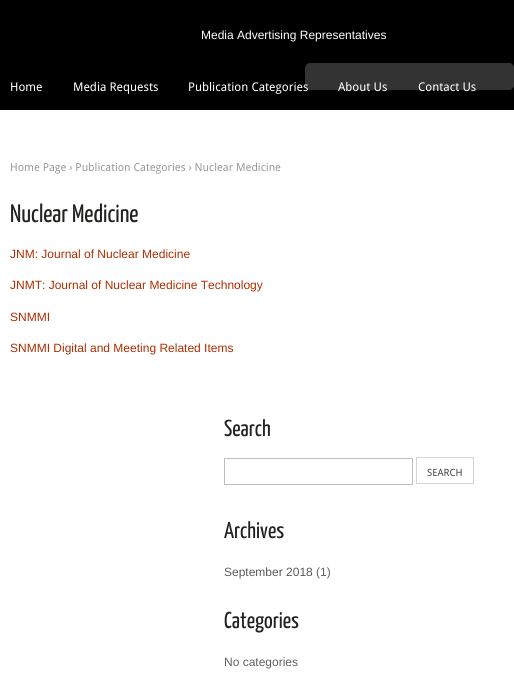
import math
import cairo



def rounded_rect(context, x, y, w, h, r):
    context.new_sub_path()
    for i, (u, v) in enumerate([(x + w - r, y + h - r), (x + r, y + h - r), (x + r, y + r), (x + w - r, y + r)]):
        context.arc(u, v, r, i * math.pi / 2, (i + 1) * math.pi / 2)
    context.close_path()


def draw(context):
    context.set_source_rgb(1, 1, 1)
    context.paint()
    context.set_source_rgb(0, 0, 0)
    context.rectangle(0, 0, 514, 110)
    context.fill()
    context.rectangle(224.5, 458.5, 188, 26)
    context.set_source_rgb(189 / 255, 190 / 255, 190 / 255)
    context.set_line_width(1)
    context.stroke()
    context.rectangle(416.5, 457.5, 57, 26)
    context.set_source_rgb(213 / 255, 212 / 255, 212 / 255)
    context.stroke()
    context.select_font_face("Liberation Sans")
    context.set_font_size(12)
    context.set_source_rgb(1, 1, 1)
    context.move_to(201, 39)
    context.show_text("Media Advertising Representatives")
    context.select_font_face("Droid Sans")
    context.move_to(10, 91)
    context.show_text("Home")
    context.move_to(73, 91)
    context.show_text("Media Requests")
    context.move_to(188, 91)
    context.show_text("Publication Categories")
    context.move_to(338, 91)
    context.show_text("About Us")
    context.move_to(418, 91)
    context.show_text("Contact Us")
    context.set_source_rgba(1, 1, 1, 0.2)
    rounded_rect(context, 305, 63, 209, 27, 5)
    context.fill()
    context.set_font_size(11)
    context.set_source_rgb(153 / 255, 153 / 255, 153 / 255)
    context.move_to(10, 171)
    context.show_text("Home Page › Publication Categories › Nuclear Medicine")
    context.select_font_face("Yanone Kaffeesatz")
    context.set_font_size(25.25)
    context.set_source_rgb(35 / 255, 34 / 255, 33 / 255)
    context.move_to(10, 222)
    context.show_text("Nuclear Medicine")
    context.select_font_face("Liberation Sans")
    context.set_font_size(12)
    context.set_source_rgb(173 / 255, 45 / 255, 1 / 255)
    context.move_to(10, 258)
    context.show_text("JNM: Journal of Nuclear Medicine")
    context.move_to(10, 289)
    context.show_text("JNMT: Journal of Nuclear Medicine Technology")
    context.move_to(10, 321)
    context.show_text("SNMMI")
    context.move_to(10, 352)
    context.show_text("SNMMI Digital and Meeting Related Items")
    context.select_font_face("Yanone Kaffeesatz")
    context.set_font_size(23)
    context.set_source_rgb(35 / 255, 34 / 255, 33 / 255)
    context.move_to(224, 436)
    context.show_text("Search")
    context.select_font_face("Droid Sans")
    context.set_font_size(10)
    context.set_source_rgb(68 / 255, 68 / 255, 68 / 255)
    context.move_to(427, 476)
    context.show_text("SEARCH")
    context.select_font_face("Yanone Kaffeesatz")
    context.set_font_size(23)
    context.set_source_rgb(35 / 255, 34 / 255, 33 / 255)
    context.move_to(224, 538)
    context.show_text("Archives")
    context.select_font_face("Liberation Sans")
    context.set_font_size(12)
    context.set_source_rgb(89 / 255, 89 / 255, 89 / 255)
    context.move_to(224, 576)
    context.show_text("September 2018")
    context.set_source_rgb(99 / 255, 96 / 255, 96 / 255)
    context.move_to(316, 576)
    context.show_text("(1)")
    context.select_font_face("Yanone Kaffeesatz")
    context.set_font_size(23)
    context.set_source_rgb(35 / 255, 34 / 255, 33 / 255)
    context.move_to(224, 628)
    context.show_text("Categories")
    context.select_font_face("Liberation Sans")
    context.set_font_size(12)
    context.set_source_rgb(99 / 255, 96 / 255, 96 / 255)
    context.move_to(224, 666)
    context.show_text("No categories")


surface = cairo.ImageSurface(cairo.Format.RGB24, 514, 696)
context = cairo.Context(surface)
options = cairo.FontOptions()
options.set_hint_metrics(cairo.HintMetrics.OFF)
options.set_hint_style(cairo.HintStyle.NONE)
context.set_font_options(options)
context.set_miter_limit(4)
draw(context)
surface.write_to_png("out.png")
